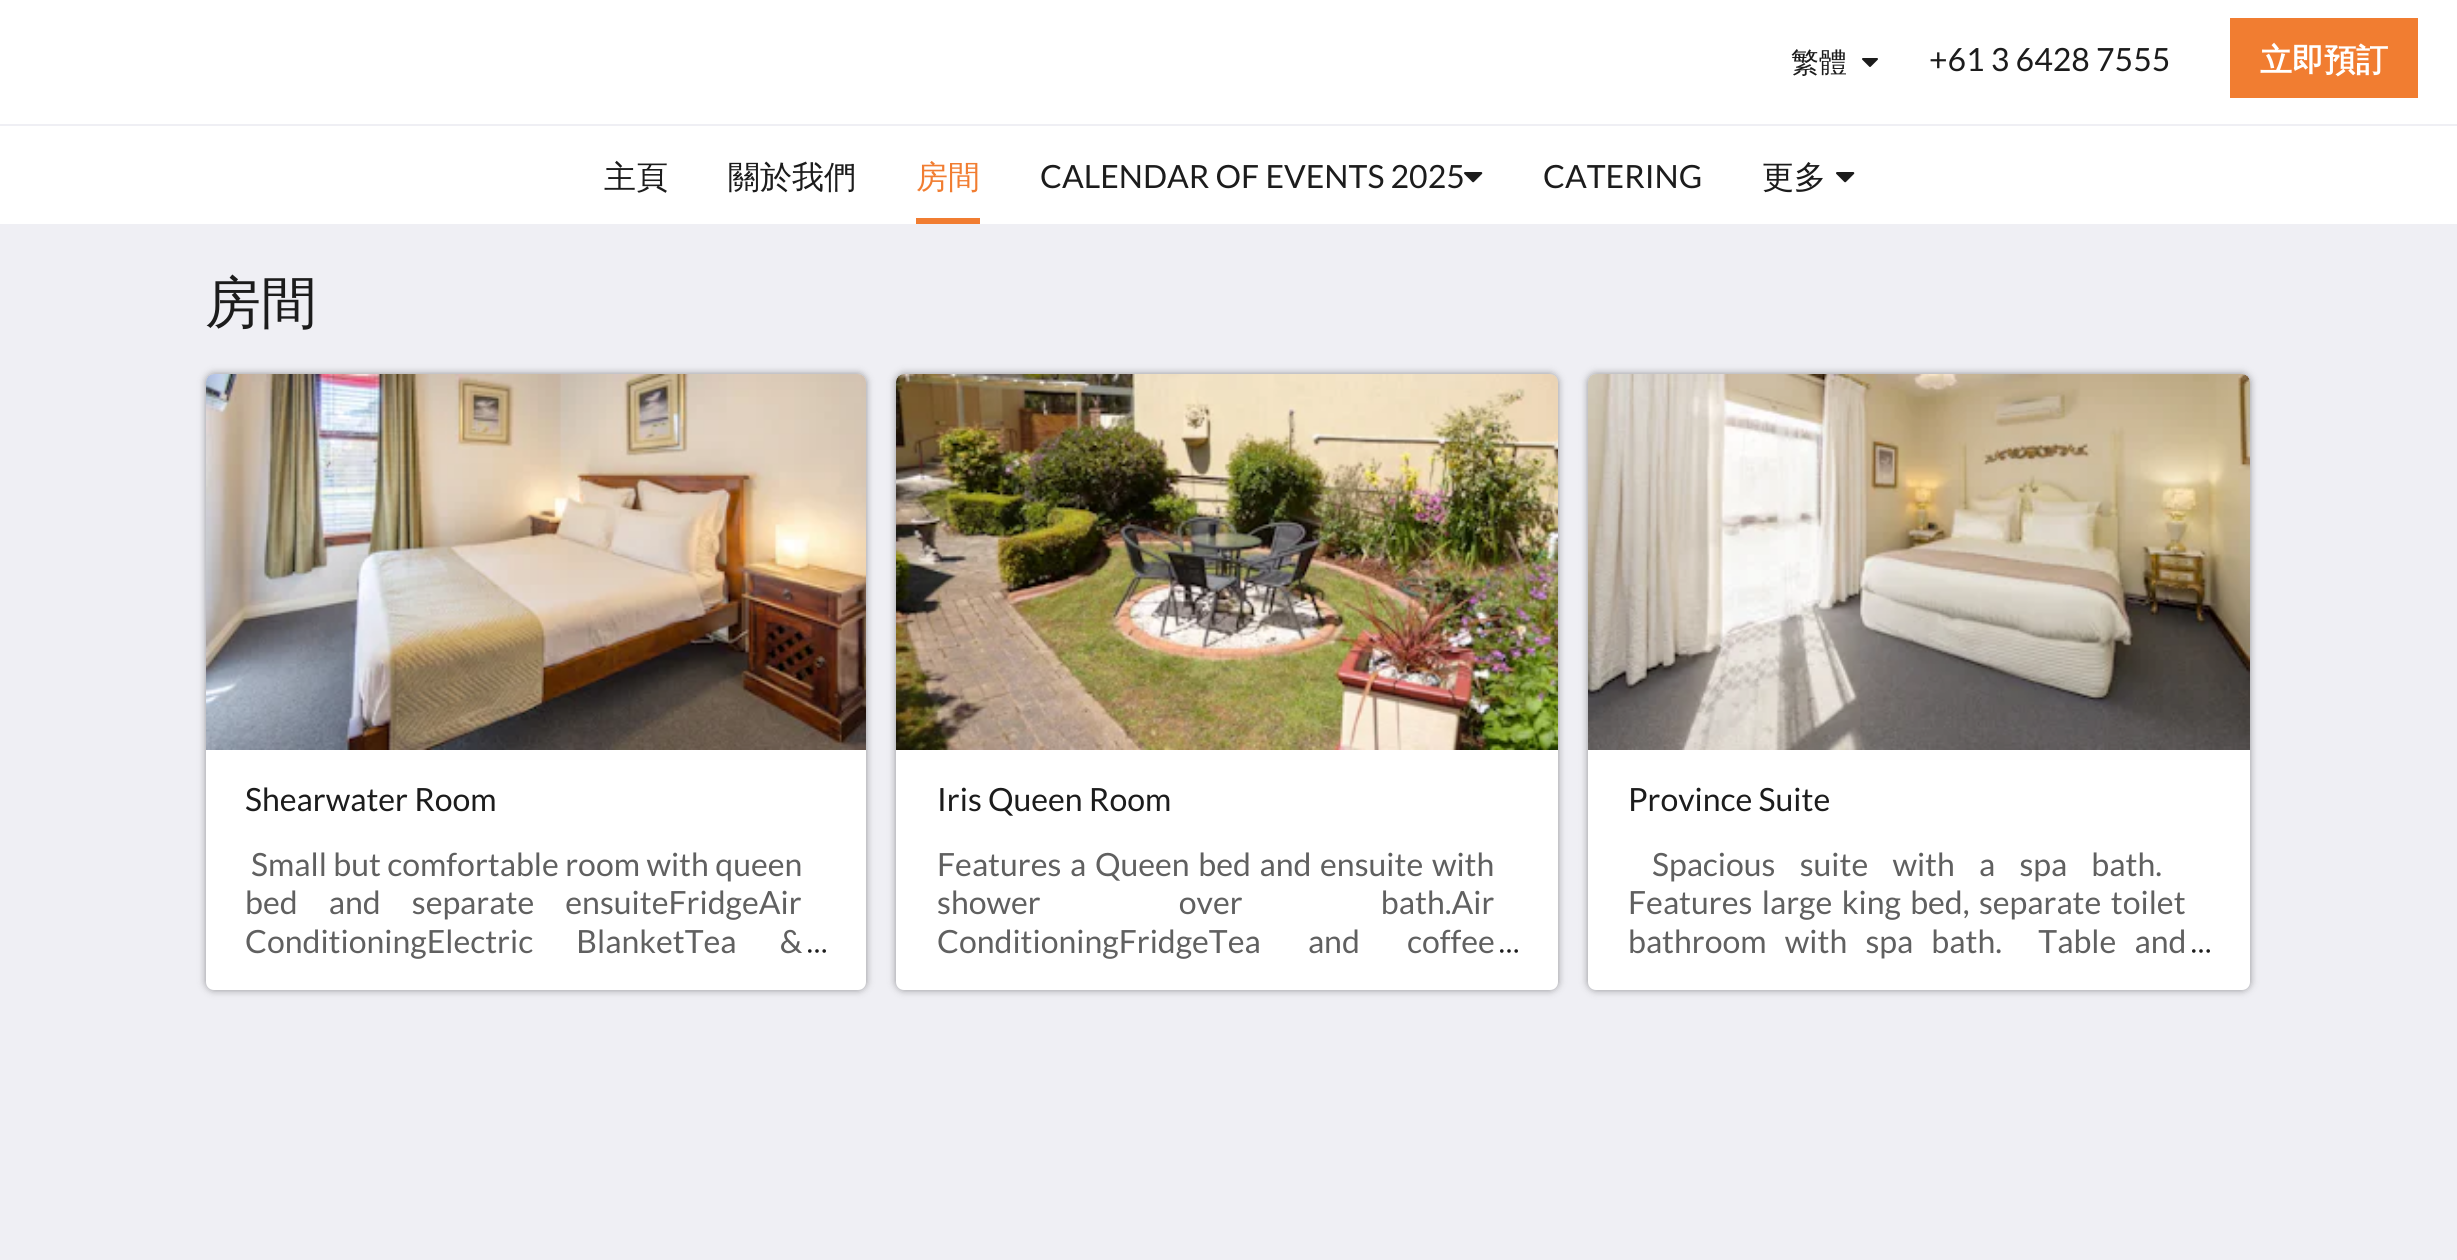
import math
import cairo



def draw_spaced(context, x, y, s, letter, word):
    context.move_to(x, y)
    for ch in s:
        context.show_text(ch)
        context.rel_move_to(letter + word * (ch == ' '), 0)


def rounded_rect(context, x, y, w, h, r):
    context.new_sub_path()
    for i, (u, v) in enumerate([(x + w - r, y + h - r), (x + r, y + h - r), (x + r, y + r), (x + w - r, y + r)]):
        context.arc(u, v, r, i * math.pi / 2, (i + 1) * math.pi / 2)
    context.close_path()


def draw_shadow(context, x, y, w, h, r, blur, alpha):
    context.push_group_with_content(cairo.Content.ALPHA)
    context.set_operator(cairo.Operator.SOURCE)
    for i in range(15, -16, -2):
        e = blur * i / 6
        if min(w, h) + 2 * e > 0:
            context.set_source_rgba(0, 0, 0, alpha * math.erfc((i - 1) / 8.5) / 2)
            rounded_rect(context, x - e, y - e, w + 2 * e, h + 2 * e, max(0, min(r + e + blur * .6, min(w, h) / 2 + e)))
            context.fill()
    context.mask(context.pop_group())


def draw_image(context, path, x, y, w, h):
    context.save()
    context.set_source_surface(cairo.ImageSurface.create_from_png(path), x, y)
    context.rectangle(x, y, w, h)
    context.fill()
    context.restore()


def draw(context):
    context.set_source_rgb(239 / 255, 239 / 255, 244 / 255)
    context.paint()
    context.set_source_rgb(1, 1, 1)
    context.rectangle(0, 0, 2457, 124)
    context.fill()
    draw_image(context, "images/1.png", 1862, 58, 16, 9)
    context.set_source_rgb(241 / 255, 125 / 255, 49 / 255)
    context.rectangle(2230, 18, 188, 80)
    context.fill()
    context.set_source_rgb(1, 1, 1)
    context.rectangle(0, 126, 2457, 98)
    context.fill()
    context.set_source_rgb(241 / 255, 125 / 255, 49 / 255)
    context.rectangle(916, 218, 64, 6)
    context.fill()
    draw_image(context, "images/2.png", 1464, 172, 19, 11)
    draw_image(context, "images/2.png", 1836, 172, 19, 11)
    context.set_source_rgb(0, 0, 0)
    draw_shadow(context, 206, 374, 660, 616, 8, 4, 0.4)
    context.set_source_rgb(216 / 255, 216 / 255, 216 / 255)
    context.new_path()
    context.move_to(214, 374)
    context.line_to(858, 374)
    context.curve_to(862.5, 374, 866, 377.5, 866, 382)
    context.line_to(866, 750)
    context.line_to(206, 750)
    context.line_to(206, 382)
    context.curve_to(206, 377.5, 209.5, 374, 214, 374)
    context.close_path()
    context.fill()
    draw_image(context, "images/3.png", 206, 374, 660, 376)
    context.set_source_rgb(1, 1, 1)
    context.new_path()
    context.move_to(206, 750)
    context.line_to(866, 750)
    context.line_to(866, 982)
    context.curve_to(866, 986.5, 862.5, 990, 858, 990)
    context.line_to(214, 990)
    context.curve_to(209.5, 990, 206, 986.5, 206, 982)
    context.close_path()
    context.fill()
    context.set_source_rgb(28 / 255, 28 / 255, 28 / 255)
    context.arc(809.8, 951, 1.8, 0, 2 * math.pi)
    context.fill()
    context.arc(817, 951, 1.8, 0, 2 * math.pi)
    context.fill()
    context.arc(824.2, 951, 1.8, 0, 2 * math.pi)
    context.fill()
    context.set_source_rgb(0, 0, 0)
    draw_shadow(context, 896, 374, 662, 616, 8, 4, 0.4)
    context.set_source_rgb(216 / 255, 216 / 255, 216 / 255)
    context.new_path()
    context.move_to(904, 374)
    context.line_to(1550, 374)
    context.curve_to(1554.5, 374, 1558, 377.5, 1558, 382)
    context.line_to(1558, 750)
    context.line_to(896, 750)
    context.line_to(896, 382)
    context.curve_to(896, 377.5, 899.5, 374, 904, 374)
    context.close_path()
    context.fill()
    draw_image(context, "images/4.png", 896, 374, 662, 376)
    context.set_source_rgb(1, 1, 1)
    context.new_path()
    context.move_to(896, 750)
    context.line_to(1558, 750)
    context.line_to(1558, 982)
    context.curve_to(1558, 986.5, 1554.5, 990, 1550, 990)
    context.line_to(904, 990)
    context.curve_to(899.5, 990, 896, 986.5, 896, 982)
    context.close_path()
    context.fill()
    context.set_source_rgb(28 / 255, 28 / 255, 28 / 255)
    context.arc(1501.8, 951, 1.8, 0, 2 * math.pi)
    context.fill()
    context.arc(1509, 951, 1.8, 0, 2 * math.pi)
    context.fill()
    context.arc(1516.2, 951, 1.8, 0, 2 * math.pi)
    context.fill()
    context.set_source_rgb(0, 0, 0)
    draw_shadow(context, 1588, 374, 662, 616, 8, 4, 0.4)
    context.set_source_rgb(216 / 255, 216 / 255, 216 / 255)
    context.new_path()
    context.move_to(1596, 374)
    context.line_to(2242, 374)
    context.curve_to(2246.5, 374, 2250, 377.5, 2250, 382)
    context.line_to(2250, 750)
    context.line_to(1588, 750)
    context.line_to(1588, 382)
    context.curve_to(1588, 377.5, 1591.5, 374, 1596, 374)
    context.close_path()
    context.fill()
    draw_image(context, "images/5.png", 1588, 374, 662, 376)
    context.set_source_rgb(1, 1, 1)
    context.new_path()
    context.move_to(1588, 750)
    context.line_to(2250, 750)
    context.line_to(2250, 982)
    context.curve_to(2250, 986.5, 2246.5, 990, 2242, 990)
    context.line_to(1596, 990)
    context.curve_to(1591.5, 990, 1588, 986.5, 1588, 982)
    context.close_path()
    context.fill()
    context.set_source_rgb(28 / 255, 28 / 255, 28 / 255)
    context.arc(2193.8, 951, 1.8, 0, 2 * math.pi)
    context.fill()
    context.arc(2201, 951, 1.8, 0, 2 * math.pi)
    context.fill()
    context.arc(2208.2, 951, 1.8, 0, 2 * math.pi)
    context.fill()
    context.select_font_face("WenQuanYi Zen Hei Medium")
    context.set_font_size(28)
    context.move_to(1791, 72)
    context.show_text("繁體")
    context.select_font_face("Lato")
    context.set_font_size(32)
    context.move_to(1929, 71)
    context.show_text("+61 3 6428 7555")
    context.select_font_face("WenQuanYi Zen Hei", cairo.FontSlant.NORMAL, cairo.FontWeight.BOLD)
    context.set_source_rgb(1, 1, 1)
    context.move_to(2260, 71)
    context.show_text("立即預訂")
    context.select_font_face("WenQuanYi Zen Hei Medium")
    context.set_source_rgb(28 / 255, 28 / 255, 28 / 255)
    context.move_to(604, 188)
    context.show_text("主頁")
    context.move_to(728, 188)
    context.show_text("關於我們")
    context.set_source_rgb(241 / 255, 125 / 255, 49 / 255)
    context.move_to(916, 188)
    context.show_text("房間")
    context.select_font_face("Lato")
    context.set_source_rgb(28 / 255, 28 / 255, 28 / 255)
    context.move_to(1040, 188)
    context.show_text("CALENDAR OF EVENTS 2025")
    context.move_to(1543, 188)
    context.show_text("CATERING")
    context.select_font_face("WenQuanYi Zen Hei Medium")
    context.move_to(1762, 188)
    context.show_text("更多")
    context.set_font_size(56)
    context.move_to(205, 322)
    context.show_text("房間")
    context.select_font_face("Lato")
    context.set_font_size(32)
    context.move_to(245, 811)
    context.show_text("Shearwater Room")
    context.set_source_rgb(96 / 255, 96 / 255, 96 / 255)
    draw_spaced(context, 251, 876, "Small but comfortable room with queen", 0, 0.25)
    draw_spaced(context, 245, 914, "bed and separate ensuiteFridgeAir", 0, 25)
    draw_spaced(context, 245, 953, "ConditioningElectric BlanketTea &", 0, 37)
    context.set_source_rgb(28 / 255, 28 / 255, 28 / 255)
    context.move_to(937, 811)
    context.show_text("Iris Queen Room")
    context.set_source_rgb(96 / 255, 96 / 255, 96 / 255)
    draw_spaced(context, 937, 876, "Features a Queen bed and ensuite with", 0, 2.5)
    draw_spaced(context, 937, 914, "shower over bath.Air", 0, 132)
    draw_spaced(context, 937, 953, "ConditioningFridgeTea and coffee", 0, 41)
    context.set_source_rgb(28 / 255, 28 / 255, 28 / 255)
    context.move_to(1628, 811)
    context.show_text("Province Suite")
    context.set_source_rgb(96 / 255, 96 / 255, 96 / 255)
    draw_spaced(context, 1652, 876, "Spacious suite with a spa bath.", 0, 18)
    draw_spaced(context, 1628, 914, "Features large king bed, separate toilet", 0, 3.25)
    draw_spaced(context, 1628, 953, "bathroom with spa bath.  Table and", 0, 12)


surface = cairo.ImageSurface(cairo.Format.RGB24, 2457, 1260)
context = cairo.Context(surface)
options = cairo.FontOptions()
options.set_hint_metrics(cairo.HintMetrics.OFF)
options.set_hint_style(cairo.HintStyle.NONE)
context.set_font_options(options)
context.set_miter_limit(4)
draw(context)
surface.write_to_png("out.png")
